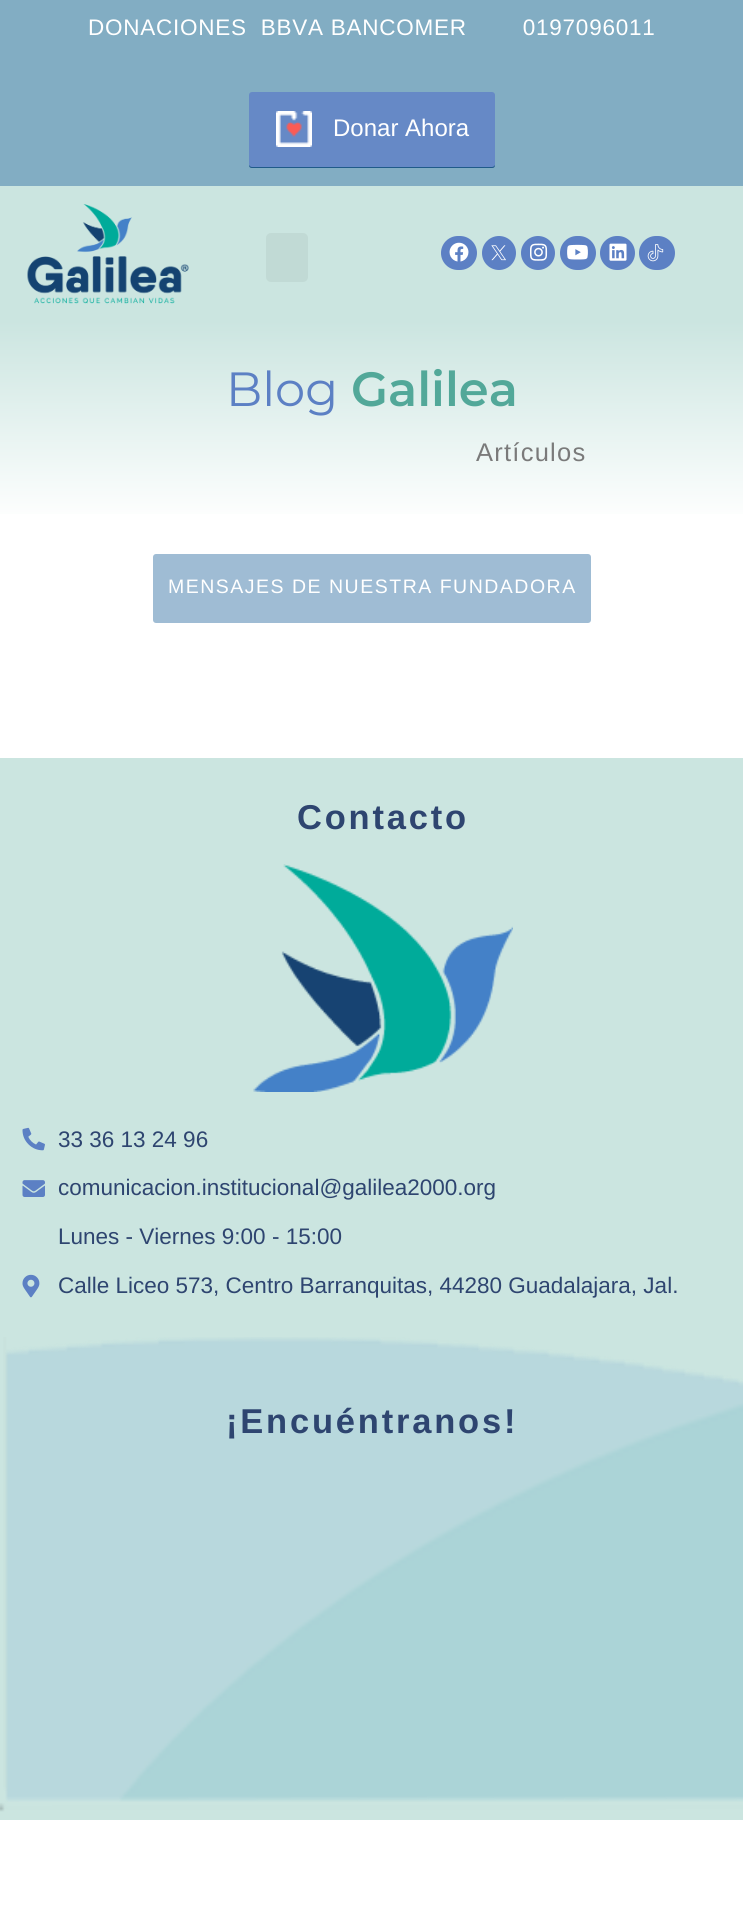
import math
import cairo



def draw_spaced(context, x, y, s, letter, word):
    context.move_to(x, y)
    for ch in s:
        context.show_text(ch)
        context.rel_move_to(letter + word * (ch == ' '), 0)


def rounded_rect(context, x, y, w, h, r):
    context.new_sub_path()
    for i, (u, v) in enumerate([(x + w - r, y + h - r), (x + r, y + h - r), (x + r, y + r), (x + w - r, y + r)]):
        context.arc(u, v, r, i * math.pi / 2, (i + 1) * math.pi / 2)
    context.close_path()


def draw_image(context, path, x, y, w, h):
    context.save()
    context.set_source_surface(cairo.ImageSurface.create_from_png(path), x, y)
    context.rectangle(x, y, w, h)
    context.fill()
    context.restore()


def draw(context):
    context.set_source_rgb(1, 1, 1)
    context.paint()
    context.set_source_rgb(130 / 255, 173 / 255, 195 / 255)
    context.rectangle(0, 0, 743, 186)
    context.fill()
    context.set_source_rgb(31 / 255, 90 / 255, 137 / 255)
    context.new_path()
    context.move_to(249, 164)
    context.curve_to(249, 166, 249, 168, 252, 168)
    context.line_to(492, 168)
    context.curve_to(495, 168, 495, 166, 495, 164)
    context.curve_to(495, 165, 494, 166, 492, 166)
    context.line_to(252, 166)
    context.curve_to(250, 166, 249, 165, 249, 164)
    context.close_path()
    context.fill()
    context.set_source_rgb(102 / 255, 137 / 255, 198 / 255)
    rounded_rect(context, 249, 92, 246, 75, 3)
    context.fill()
    draw_image(context, "images/1.png", 276, 111, 36, 36)
    context.set_source_rgb(203 / 255, 229 / 255, 224 / 255)
    context.rectangle(0, 186, 743, 135)
    context.fill()
    draw_image(context, "images/2.png", 27, 204, 162, 100)
    context.set_source_rgb(193 / 255, 218 / 255, 213 / 255)
    rounded_rect(context, 266, 233, 42, 49, 5)
    context.fill()
    context.set_source_rgb(92 / 255, 128 / 255, 196 / 255)
    rounded_rect(context, 441, 236, 36, 34, 17)
    context.fill()
    draw_image(context, "images/3.png", 449, 242, 20, 20)
    context.arc(499, 253, 17, 0, 2 * math.pi)
    context.fill()
    draw_image(context, "images/4.png", 491, 245, 15, 16)
    context.arc(538, 253, 17, 0, 2 * math.pi)
    context.fill()
    draw_image(context, "images/5.png", 530, 243, 18, 18)
    rounded_rect(context, 560, 236, 36, 34, 17)
    context.fill()
    draw_image(context, "images/6.png", 567, 244, 21, 16)
    rounded_rect(context, 600, 236, 35, 34, 17)
    context.fill()
    draw_image(context, "images/7.png", 609, 243, 18, 18)
    rounded_rect(context, 639, 236, 36, 34, 17)
    context.fill()
    draw_image(context, "images/8.png", 647, 244, 17, 18)
    gradient = cairo.LinearGradient(372, 321, 372, 524)
    gradient.add_color_stop_rgba(0, 203 / 255, 229 / 255, 224 / 255, 1)
    gradient.add_color_stop_rgba(1, 1, 1, 1, 1)
    context.set_source(gradient)
    context.rectangle(0, 321, 743, 193)
    context.fill()
    context.set_source_rgb(159 / 255, 188 / 255, 212 / 255)
    rounded_rect(context, 153, 554, 438, 69, 3)
    context.fill()
    context.set_source_rgb(203 / 255, 229 / 255, 224 / 255)
    context.rectangle(0, 758, 743, 1062)
    context.fill()
    draw_image(context, "images/9.png", 253, 864, 260, 228)
    draw_image(context, "images/10.png", 22, 1127, 23, 24)
    draw_image(context, "images/11.png", 22, 1180, 23, 17)
    draw_image(context, "images/12.png", 22, 1274, 18, 24)
    draw_image(context, "images/13.png", 0, 1337, 743, 475)
    context.select_font_face("Liberation Sans")
    context.set_font_size(22.5)
    context.set_source_rgb(1, 1, 1)
    draw_spaced(context, 88, 35, "DONACIONES  BBVA BANCOMER        0197096011", 0.75, 0)
    context.set_font_size(24)
    context.move_to(333, 136)
    context.show_text("Donar Ahora")
    context.select_font_face("Montserrat")
    context.set_font_size(48)
    context.set_source_rgb(92 / 255, 128 / 255, 196 / 255)
    context.move_to(226, 406)
    context.show_text("Blog")
    context.select_font_face("Montserrat SemiBold")
    context.set_source_rgb(82 / 255, 168 / 255, 153 / 255)
    context.move_to(351, 406)
    context.show_text("Galilea")
    context.select_font_face("Liberation Sans")
    context.set_font_size(25.5)
    context.set_source_rgb(122 / 255, 122 / 255, 122 / 255)
    draw_spaced(context, 476, 461, "Artículos", 1.25, 0)
    context.set_font_size(19.5)
    context.set_source_rgb(1, 1, 1)
    draw_spaced(context, 168, 593, "MENSAJES DE NUESTRA FUNDADORA", 1.5, 0)
    context.select_font_face("Liberation Sans", cairo.FontSlant.NORMAL, cairo.FontWeight.BOLD)
    context.set_font_size(34.5)
    context.set_source_rgb(46 / 255, 69 / 255, 112 / 255)
    draw_spaced(context, 297, 829, "Contacto", 2.8, 0)
    context.select_font_face("Liberation Sans")
    context.set_font_size(22.5)
    context.move_to(58, 1147)
    context.show_text("33 36 13 24 96")
    context.move_to(58, 1195)
    context.show_text("comunicacion.institucional@galilea2000.org")
    context.move_to(58, 1244)
    context.show_text("Lunes - Viernes 9:00 - 15:00")
    context.move_to(58, 1293)
    context.show_text("Calle Liceo 573, Centro Barranquitas, 44280 Guadalajara, Jal.")
    context.select_font_face("Liberation Sans", cairo.FontSlant.NORMAL, cairo.FontWeight.BOLD)
    context.set_font_size(34.5)
    draw_spaced(context, 226, 1433, "¡Encuéntranos!", 2.8, 0)


surface = cairo.ImageSurface(cairo.Format.RGB24, 743, 1926)
context = cairo.Context(surface)
options = cairo.FontOptions()
options.set_hint_metrics(cairo.HintMetrics.OFF)
options.set_hint_style(cairo.HintStyle.NONE)
context.set_font_options(options)
context.set_miter_limit(4)
draw(context)
surface.write_to_png("out.png")
